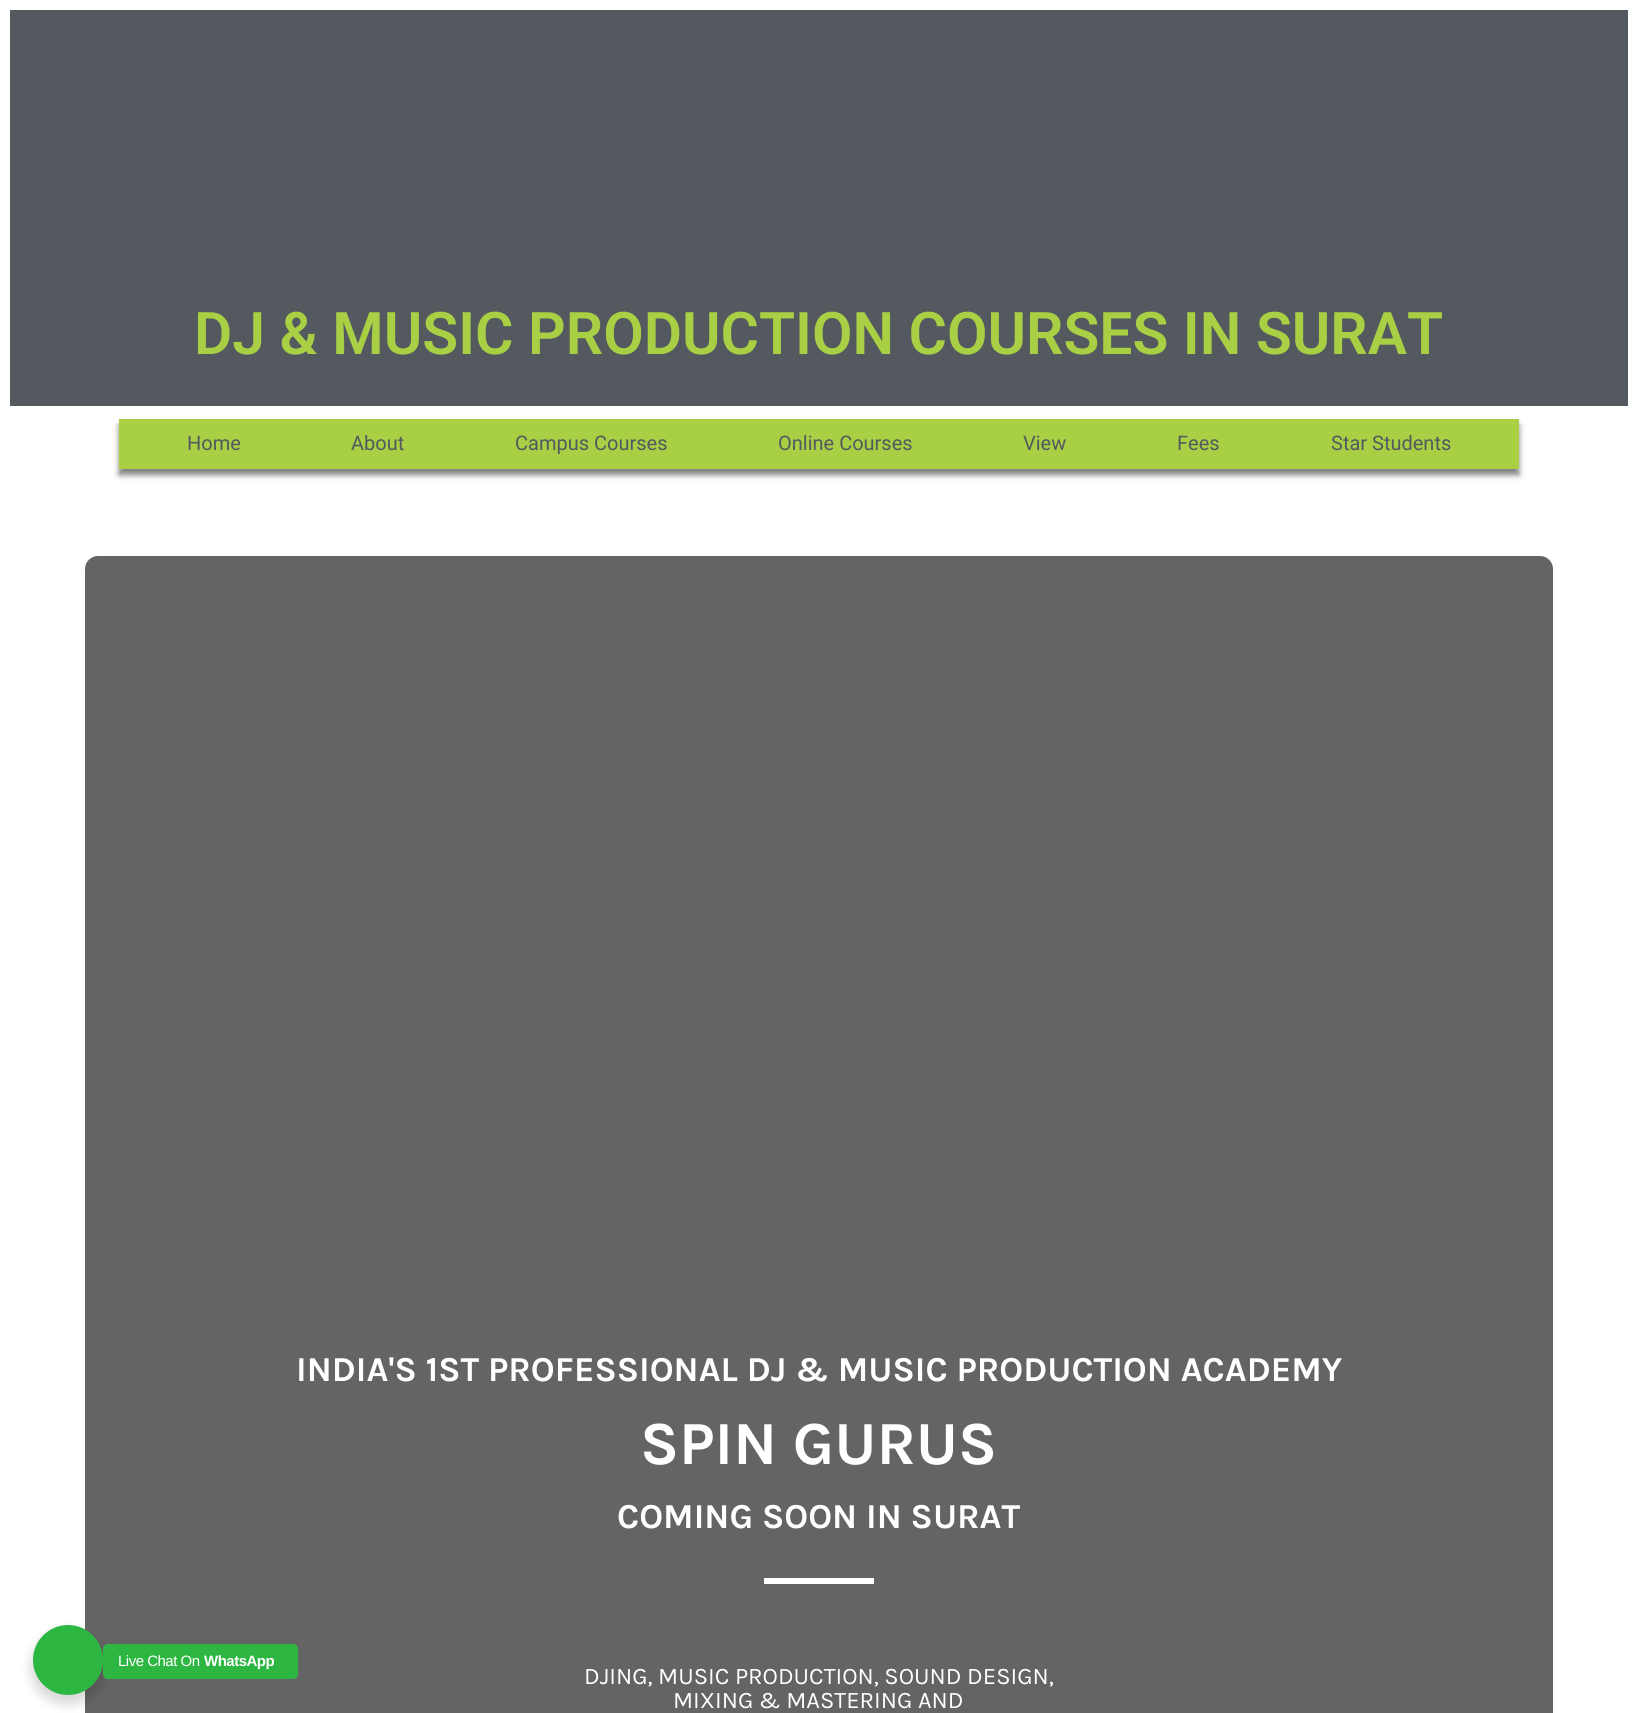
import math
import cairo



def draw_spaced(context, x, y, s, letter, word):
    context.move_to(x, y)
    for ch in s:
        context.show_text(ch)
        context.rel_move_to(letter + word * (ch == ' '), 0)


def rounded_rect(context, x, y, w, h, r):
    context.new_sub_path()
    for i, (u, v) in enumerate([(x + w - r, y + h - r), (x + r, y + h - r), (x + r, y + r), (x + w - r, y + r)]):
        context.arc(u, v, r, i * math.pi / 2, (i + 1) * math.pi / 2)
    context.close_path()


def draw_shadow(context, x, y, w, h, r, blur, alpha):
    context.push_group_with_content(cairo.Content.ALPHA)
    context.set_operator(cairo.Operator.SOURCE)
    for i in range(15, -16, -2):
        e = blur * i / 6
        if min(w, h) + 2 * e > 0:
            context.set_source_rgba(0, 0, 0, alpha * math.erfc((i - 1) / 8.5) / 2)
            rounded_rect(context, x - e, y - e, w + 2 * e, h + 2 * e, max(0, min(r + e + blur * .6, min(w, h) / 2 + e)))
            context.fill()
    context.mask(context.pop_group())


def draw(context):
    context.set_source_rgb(1, 1, 1)
    context.paint()
    context.set_source_rgb(84 / 255, 89 / 255, 95 / 255)
    context.rectangle(10, 10, 1618, 396)
    context.fill()
    context.set_source_rgb(0, 0, 0)
    draw_shadow(context, 119, 425, 1400, 50, 0, 3, 0.5)
    context.set_source_rgb(169 / 255, 207 / 255, 68 / 255)
    context.rectangle(119, 419, 1400, 50)
    context.fill()
    context.set_source_rgb(100 / 255, 100 / 255, 100 / 255)
    rounded_rect(context, 85, 556, 1468, 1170, 13)
    context.fill()
    context.set_source_rgb(1, 1, 1)
    context.rectangle(764, 1578, 110, 6)
    context.fill()
    context.set_source_rgb(0, 0, 0)
    draw_shadow(context, 30, 1630, 75, 75, 37.5, 5, 0.14)
    context.set_source_rgb(45 / 255, 183 / 255, 66 / 255)
    context.arc(68, 1660, 35, 0, 2 * math.pi)
    context.fill()
    rounded_rect(context, 103, 1644, 195, 35, 5)
    context.fill()
    context.select_font_face("Roboto SemiBold")
    context.set_font_size(58.75)
    context.set_source_rgb(169 / 255, 207 / 255, 68 / 255)
    context.move_to(194, 354)
    context.show_text("DJ & MUSIC PRODUCTION COURSES IN SURAT")
    context.select_font_face("Roboto")
    context.set_font_size(20)
    context.set_source_rgb(84 / 255, 89 / 255, 95 / 255)
    context.move_to(187, 450)
    context.show_text("Home")
    context.move_to(351, 450)
    context.show_text("About")
    context.move_to(515, 450)
    context.show_text("Campus Courses")
    context.move_to(778, 450)
    context.show_text("Online Courses")
    context.move_to(1023, 450)
    context.show_text("View")
    context.move_to(1177, 450)
    context.show_text("Fees")
    context.move_to(1331, 450)
    context.show_text("Star Students")
    context.select_font_face("Karla", cairo.FontSlant.NORMAL, cairo.FontWeight.BOLD)
    context.set_font_size(35)
    context.set_source_rgb(1, 1, 1)
    context.move_to(296, 1381)
    context.show_text("INDIA'S 1ST PROFESSIONAL DJ & MUSIC PRODUCTION ACADEMY")
    context.set_font_size(61.25)
    context.move_to(640, 1464)
    context.show_text("SPIN GURUS")
    context.set_font_size(35)
    context.move_to(617, 1528)
    context.show_text("COMING SOON IN SURAT")
    context.select_font_face("Karla")
    context.set_font_size(23.75)
    context.move_to(584, 1684)
    context.show_text("DJING, MUSIC PRODUCTION, SOUND DESIGN,")
    context.move_to(673, 1708)
    context.show_text("MIXING & MASTERING AND")
    context.select_font_face("Liberation Sans")
    context.set_font_size(15)
    draw_spaced(context, 118, 1666, "Live Chat On", -0.5, 0)
    context.select_font_face("Liberation Sans", cairo.FontSlant.NORMAL, cairo.FontWeight.BOLD)
    draw_spaced(context, 204, 1666, "WhatsApp", -0.5, 0)


surface = cairo.ImageSurface(cairo.Format.RGB24, 1637, 1713)
context = cairo.Context(surface)
options = cairo.FontOptions()
options.set_hint_metrics(cairo.HintMetrics.OFF)
options.set_hint_style(cairo.HintStyle.NONE)
context.set_font_options(options)
context.set_miter_limit(4)
draw(context)
surface.write_to_png("out.png")
